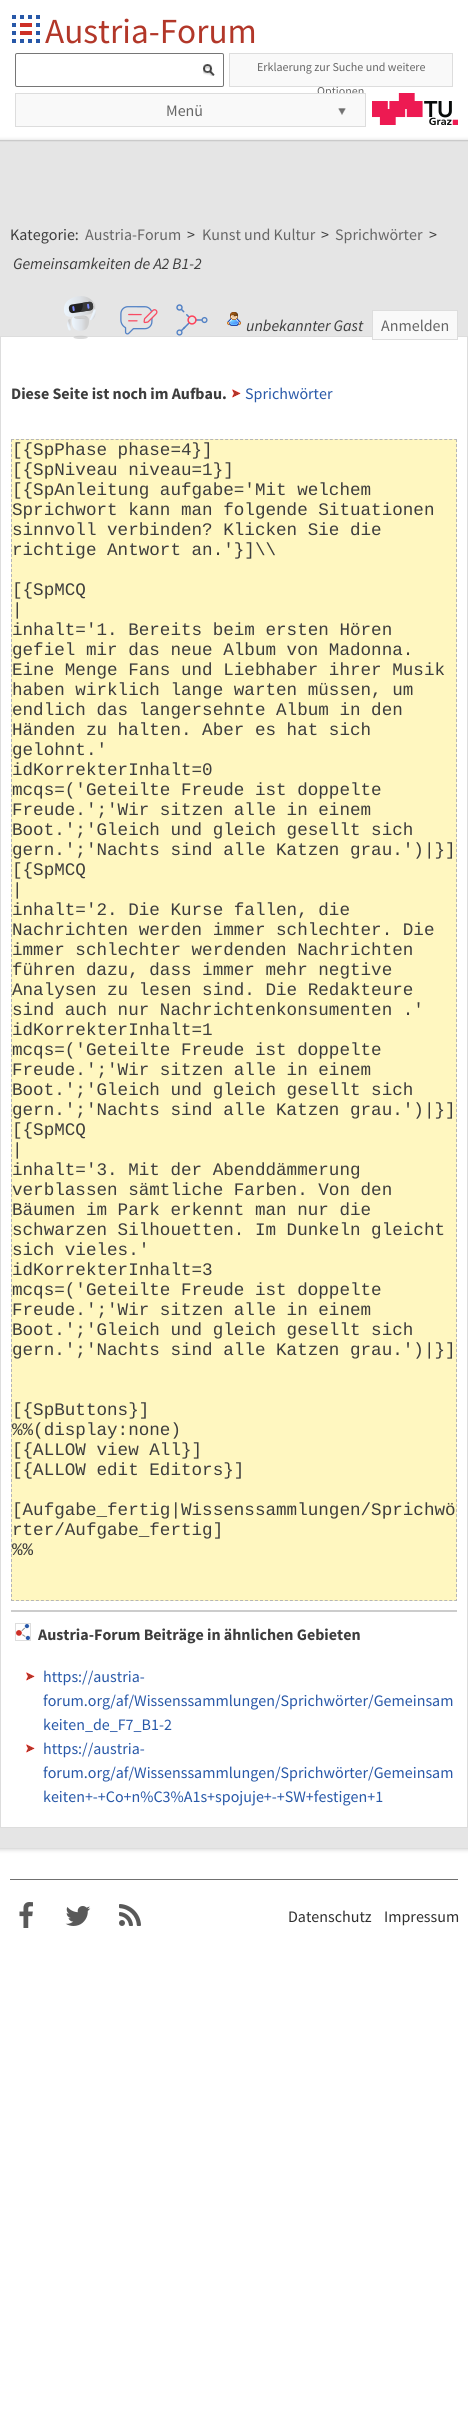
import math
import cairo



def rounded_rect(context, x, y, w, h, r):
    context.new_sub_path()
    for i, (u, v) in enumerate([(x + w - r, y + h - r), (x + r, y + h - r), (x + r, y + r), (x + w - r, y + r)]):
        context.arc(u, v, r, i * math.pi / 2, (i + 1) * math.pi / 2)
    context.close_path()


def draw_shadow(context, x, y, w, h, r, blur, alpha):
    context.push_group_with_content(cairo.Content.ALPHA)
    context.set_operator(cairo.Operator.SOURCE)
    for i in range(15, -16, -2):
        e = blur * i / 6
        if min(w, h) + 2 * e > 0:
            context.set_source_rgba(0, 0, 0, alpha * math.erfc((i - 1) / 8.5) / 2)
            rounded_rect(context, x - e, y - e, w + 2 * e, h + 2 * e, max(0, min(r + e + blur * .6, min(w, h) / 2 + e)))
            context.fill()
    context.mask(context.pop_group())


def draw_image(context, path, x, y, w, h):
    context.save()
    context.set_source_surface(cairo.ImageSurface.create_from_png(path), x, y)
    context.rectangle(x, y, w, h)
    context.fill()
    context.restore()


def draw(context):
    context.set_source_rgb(1, 1, 1)
    context.paint()
    context.set_source_rgb(221 / 255, 221 / 255, 221 / 255)
    context.rectangle(0, 140, 468, 1)
    context.fill()
    draw_image(context, "images/1.png", 12, 15, 28, 28)
    rounded_rect(context, 15.5, 53.5, 208, 33, 1.5)
    context.set_source_rgb(118 / 255, 118 / 255, 118 / 255)
    context.set_line_width(1)
    context.stroke()
    draw_image(context, "images/2.png", 203, 64, 12, 12)
    context.set_source_rgb(249 / 255, 249 / 255, 249 / 255)
    context.rectangle(229.5, 53.5, 223, 33)
    context.fill_preserve()
    context.set_source_rgb(221 / 255, 221 / 255, 221 / 255)
    context.stroke()
    draw_image(context, "images/4.png", 372, 93, 86, 32)
    context.set_source_rgb(0, 0, 0)
    draw_shadow(context, -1, 140, 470, 1710, 0, 2, 0.15)
    context.set_source_rgb(229 / 255, 229 / 255, 229 / 255)
    context.rectangle(0, 142, 468, 1706)
    context.fill()
    context.set_source_rgb(221 / 255, 221 / 255, 221 / 255)
    context.rectangle(0, 141, 468, 1)
    context.fill()
    context.rectangle(0, 1848, 468, 1)
    context.fill()
    context.set_source_rgb(1, 1, 1)
    context.rectangle(0.5, 336.5, 467, 1491)
    context.fill_preserve()
    context.set_source_rgb(221 / 255, 221 / 255, 221 / 255)
    context.stroke()
    draw_image(context, "images/5.png", 64, 296, 32, 43)
    draw_image(context, "images/6.png", 120, 306, 38, 29)
    draw_image(context, "images/7.png", 176, 304, 32, 32)
    draw_image(context, "images/8.png", 227, 312, 14, 14)
    context.set_source_rgb(249 / 255, 249 / 255, 249 / 255)
    context.rectangle(372.5, 310.5, 85, 29)
    context.fill_preserve()
    context.set_source_rgb(221 / 255, 221 / 255, 221 / 255)
    context.stroke()
    draw_image(context, "images/9.png", 232, 389, 9, 9)
    context.set_source_rgb(1, 247 / 255, 192 / 255)
    context.rectangle(11, 439, 446, 1162)
    context.fill()
    context.new_path()
    context.move_to(11, 439.5)
    context.line_to(457, 439.5)
    context.set_source_rgb(182 / 255, 182 / 255, 182 / 255)
    context.set_dash([3, 1.98])
    context.stroke()
    context.new_path()
    context.move_to(456.5, 439)
    context.line_to(456.5, 1601)
    context.set_dash([3, 2])
    context.stroke()
    context.new_path()
    context.move_to(11, 1600.5)
    context.line_to(457, 1600.5)
    context.set_dash([3, 1.98])
    context.stroke()
    context.new_path()
    context.move_to(11.5, 439)
    context.line_to(11.5, 1601)
    context.set_dash([3, 2])
    context.stroke()
    context.set_source_rgb(204 / 255, 204 / 255, 204 / 255)
    context.rectangle(11, 1610, 446, 2)
    context.fill()
    context.rectangle(15.5, 1623.5, 15, 17)
    context.set_source_rgb(221 / 255, 221 / 255, 221 / 255)
    context.set_dash([])
    context.stroke()
    draw_image(context, "images/10.png", 16, 1624, 14, 16)
    draw_image(context, "images/9.png", 26, 1672, 9, 9)
    draw_image(context, "images/9.png", 26, 1744, 9, 9)
    context.set_source_rgb(112 / 255, 112 / 255, 112 / 255)
    context.rectangle(10, 1879, 448, 1)
    context.fill()
    draw_image(context, "images/11.png", 19, 1902, 14, 26)
    draw_image(context, "images/12.png", 65, 1906, 26, 20)
    draw_image(context, "images/13.png", 119, 1904, 22, 22)
    context.select_font_face("Source Sans Pro")
    context.set_font_size(35.25)
    context.set_source_rgb(178 / 255, 55 / 255, 41 / 255)
    context.move_to(45, 43)
    context.show_text("Austria-Forum")
    context.set_font_size(12)
    context.set_source_rgb(102 / 255, 102 / 255, 102 / 255)
    context.move_to(257, 71)
    context.show_text("Erklaerung zur Suche und weitere")
    context.move_to(317, 95)
    context.show_text("Optionen")
    context.set_source_rgb(249 / 255, 249 / 255, 249 / 255)
    context.rectangle(15.5, 93.5, 350, 33)
    context.fill_preserve()
    context.set_source_rgb(221 / 255, 221 / 255, 221 / 255)
    context.stroke()
    draw_image(context, "images/3.png", 338, 108, 8, 7)
    context.set_font_size(16)
    context.set_source_rgb(102 / 255, 102 / 255, 102 / 255)
    context.move_to(166, 116)
    context.show_text("Menü")
    context.set_source_rgb(61 / 255, 61 / 255, 61 / 255)
    context.move_to(10, 240)
    context.show_text("Kategorie:")
    context.set_source_rgb(102 / 255, 102 / 255, 102 / 255)
    context.move_to(85, 240)
    context.show_text("Austria-Forum")
    context.set_source_rgb(61 / 255, 61 / 255, 61 / 255)
    context.move_to(187, 240)
    context.show_text(">")
    context.set_source_rgb(102 / 255, 102 / 255, 102 / 255)
    context.move_to(202, 240)
    context.show_text("Kunst und Kultur")
    context.set_source_rgb(61 / 255, 61 / 255, 61 / 255)
    context.move_to(321, 240)
    context.show_text(">")
    context.set_source_rgb(102 / 255, 102 / 255, 102 / 255)
    context.move_to(335, 240)
    context.show_text("Sprichwörter")
    context.set_source_rgb(61 / 255, 61 / 255, 61 / 255)
    context.move_to(429, 240)
    context.show_text(">")
    context.select_font_face("Source Sans Pro", cairo.FontSlant.ITALIC)
    context.move_to(13, 269)
    context.show_text("Gemeinsamkeiten de A2 B1-2")
    context.move_to(246, 331)
    context.show_text("unbekannter Gast")
    context.select_font_face("Source Sans Pro")
    context.set_source_rgb(102 / 255, 102 / 255, 102 / 255)
    context.move_to(381, 331)
    context.show_text("Anmelden")
    context.select_font_face("Source Sans Pro", cairo.FontSlant.NORMAL, cairo.FontWeight.BOLD)
    context.set_source_rgb(61 / 255, 61 / 255, 61 / 255)
    context.move_to(11, 399)
    context.show_text("Diese Seite ist noch im Aufbau.")
    context.select_font_face("Source Sans Pro")
    context.set_source_rgb(40 / 255, 88 / 255, 168 / 255)
    context.move_to(245, 399)
    context.show_text("Sprichwörter")
    context.select_font_face("Liberation Mono")
    context.set_font_size(17.6)
    context.set_source_rgb(61 / 255, 61 / 255, 61 / 255)
    context.move_to(12, 455)
    context.show_text("[{SpPhase phase=4}]")
    context.move_to(12, 475)
    context.show_text("[{SpNiveau niveau=1}]")
    context.move_to(12, 495)
    context.show_text("[{SpAnleitung aufgabe='Mit welchem")
    context.move_to(12, 515)
    context.show_text("Sprichwort kann man folgende Situationen")
    context.move_to(12, 535)
    context.show_text("sinnvoll verbinden? Klicken Sie die")
    context.move_to(12, 555)
    context.show_text("richtige Antwort an.'}]\\\\")
    context.move_to(12, 595)
    context.show_text("[{SpMCQ")
    context.move_to(12, 615)
    context.show_text("|")
    context.move_to(12, 635)
    context.show_text("inhalt='1. Bereits beim ersten Hören")
    context.move_to(12, 655)
    context.show_text("gefiel mir das neue Album von Madonna.")
    context.move_to(12, 675)
    context.show_text("Eine Menge Fans und Liebhaber ihrer Musik")
    context.move_to(12, 695)
    context.show_text("haben wirklich lange warten müssen, um")
    context.move_to(12, 715)
    context.show_text("endlich das langersehnte Album in den")
    context.move_to(12, 735)
    context.show_text("Händen zu halten. Aber es hat sich")
    context.move_to(12, 755)
    context.show_text("gelohnt.'")
    context.move_to(12, 775)
    context.show_text("idKorrekterInhalt=0")
    context.move_to(12, 795)
    context.show_text("mcqs=('Geteilte Freude ist doppelte")
    context.move_to(12, 815)
    context.show_text("Freude.';'Wir sitzen alle in einem")
    context.move_to(12, 835)
    context.show_text("Boot.';'Gleich und gleich gesellt sich")
    context.move_to(12, 855)
    context.show_text("gern.';'Nachts sind alle Katzen grau.')|}]")
    context.move_to(12, 875)
    context.show_text("[{SpMCQ")
    context.move_to(12, 895)
    context.show_text("|")
    context.move_to(12, 915)
    context.show_text("inhalt='2. Die Kurse fallen, die")
    context.move_to(12, 935)
    context.show_text("Nachrichten werden immer schlechter. Die")
    context.move_to(12, 955)
    context.show_text("immer schlechter werdenden Nachrichten")
    context.move_to(12, 975)
    context.show_text("führen dazu, dass immer mehr negtive")
    context.move_to(12, 995)
    context.show_text("Analysen zu lesen sind. Die Redakteure")
    context.move_to(12, 1015)
    context.show_text("sind auch nur Nachrichtenkonsumenten .'")
    context.move_to(12, 1035)
    context.show_text("idKorrekterInhalt=1")
    context.move_to(12, 1055)
    context.show_text("mcqs=('Geteilte Freude ist doppelte")
    context.move_to(12, 1075)
    context.show_text("Freude.';'Wir sitzen alle in einem")
    context.move_to(12, 1095)
    context.show_text("Boot.';'Gleich und gleich gesellt sich")
    context.move_to(12, 1115)
    context.show_text("gern.';'Nachts sind alle Katzen grau.')|}]")
    context.move_to(12, 1135)
    context.show_text("[{SpMCQ")
    context.move_to(12, 1155)
    context.show_text("|")
    context.move_to(12, 1175)
    context.show_text("inhalt='3. Mit der Abenddämmerung")
    context.move_to(12, 1195)
    context.show_text("verblassen sämtliche Farben. Von den")
    context.move_to(12, 1215)
    context.show_text("Bäumen im Park erkennt man nur die")
    context.move_to(12, 1235)
    context.show_text("schwarzen Silhouetten. Im Dunkeln gleicht")
    context.move_to(12, 1255)
    context.show_text("sich vieles.'")
    context.move_to(12, 1275)
    context.show_text("idKorrekterInhalt=3")
    context.move_to(12, 1295)
    context.show_text("mcqs=('Geteilte Freude ist doppelte")
    context.move_to(12, 1315)
    context.show_text("Freude.';'Wir sitzen alle in einem")
    context.move_to(12, 1335)
    context.show_text("Boot.';'Gleich und gleich gesellt sich")
    context.move_to(12, 1355)
    context.show_text("gern.';'Nachts sind alle Katzen grau.')|}]")
    context.move_to(12, 1415)
    context.show_text("[{SpButtons}]")
    context.move_to(12, 1435)
    context.show_text("%%(display:none)")
    context.move_to(12, 1455)
    context.show_text("[{ALLOW view All}]")
    context.move_to(12, 1475)
    context.show_text("[{ALLOW edit Editors}]")
    context.move_to(12, 1515)
    context.show_text("[Aufgabe_fertig|Wissenssammlungen/Sprichwö")
    context.move_to(12, 1535)
    context.show_text("rter/Aufgabe_fertig]")
    context.move_to(12, 1555)
    context.show_text("%%")
    context.select_font_face("Source Sans Pro", cairo.FontSlant.NORMAL, cairo.FontWeight.BOLD)
    context.set_font_size(16)
    context.move_to(38, 1640)
    context.show_text("Austria-Forum Beiträge in ähnlichen Gebieten")
    context.select_font_face("Source Sans Pro")
    context.set_source_rgb(40 / 255, 88 / 255, 168 / 255)
    context.move_to(43, 1682)
    context.show_text("https://austria-")
    context.move_to(43, 1706)
    context.show_text("forum.org/af/Wissenssammlungen/Sprichwörter/Gemeinsam")
    context.move_to(43, 1730)
    context.show_text("keiten_de_F7_B1-2")
    context.move_to(43, 1754)
    context.show_text("https://austria-")
    context.move_to(43, 1778)
    context.show_text("forum.org/af/Wissenssammlungen/Sprichwörter/Gemeinsam")
    context.move_to(43, 1802)
    context.show_text("keiten+-+Co+n%C3%A1s+spojuje+-+SW+festigen+1")
    context.set_source_rgb(48 / 255, 48 / 255, 48 / 255)
    context.move_to(288, 1922)
    context.show_text("Datenschutz")
    context.move_to(384, 1922)
    context.show_text("Impressum")


surface = cairo.ImageSurface(cairo.Format.RGB24, 468, 2425)
context = cairo.Context(surface)
options = cairo.FontOptions()
options.set_hint_metrics(cairo.HintMetrics.OFF)
options.set_hint_style(cairo.HintStyle.NONE)
context.set_font_options(options)
context.set_miter_limit(4)
draw(context)
surface.write_to_png("out.png")
